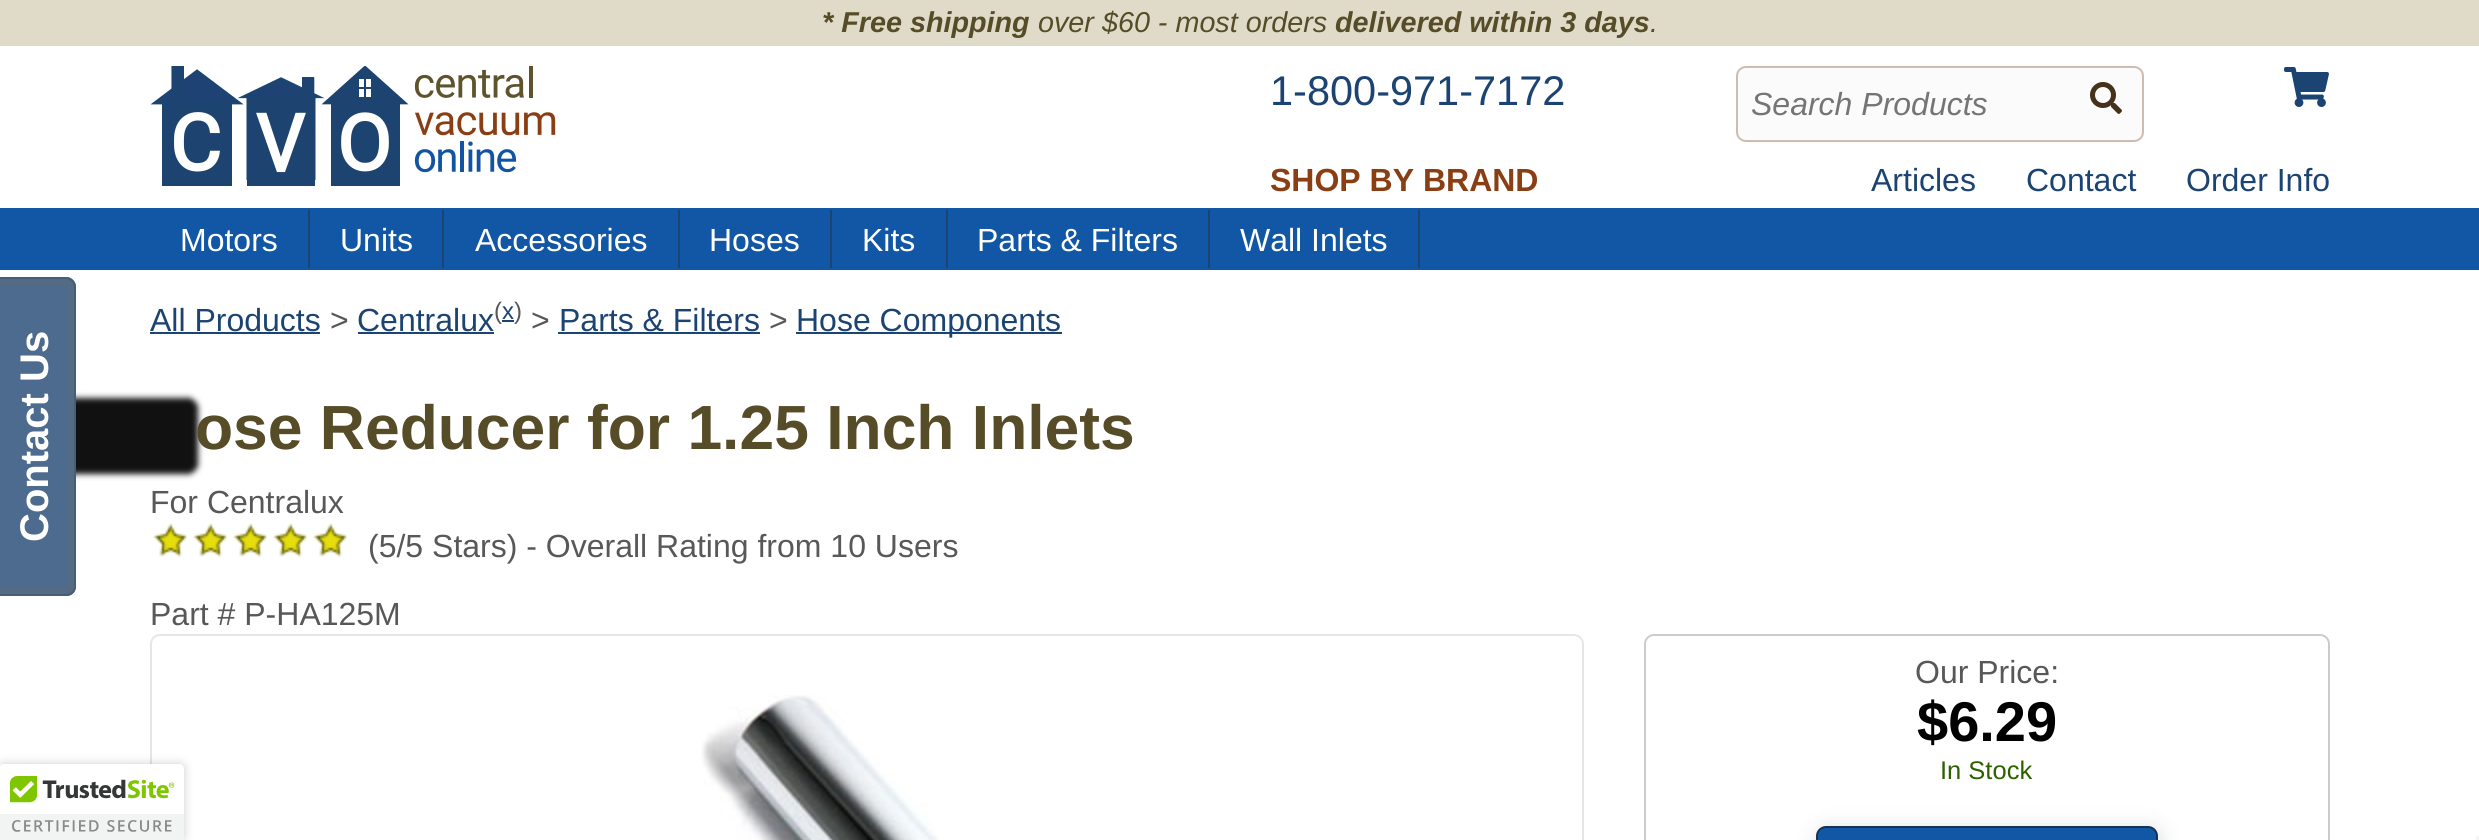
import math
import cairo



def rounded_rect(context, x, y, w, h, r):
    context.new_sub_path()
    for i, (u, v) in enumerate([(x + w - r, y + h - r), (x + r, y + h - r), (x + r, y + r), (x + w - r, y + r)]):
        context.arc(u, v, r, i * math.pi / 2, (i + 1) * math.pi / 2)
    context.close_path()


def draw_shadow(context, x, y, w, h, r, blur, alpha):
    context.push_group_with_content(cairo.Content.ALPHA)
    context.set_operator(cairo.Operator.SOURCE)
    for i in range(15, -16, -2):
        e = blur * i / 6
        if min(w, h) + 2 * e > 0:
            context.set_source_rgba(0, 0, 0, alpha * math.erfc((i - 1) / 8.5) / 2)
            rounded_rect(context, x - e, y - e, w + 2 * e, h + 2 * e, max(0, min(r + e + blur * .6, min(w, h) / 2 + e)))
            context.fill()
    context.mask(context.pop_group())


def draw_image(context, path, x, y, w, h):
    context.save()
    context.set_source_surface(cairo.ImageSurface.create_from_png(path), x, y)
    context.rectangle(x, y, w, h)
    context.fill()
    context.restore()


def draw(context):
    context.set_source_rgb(1, 1, 1)
    context.paint()
    context.set_source_rgb(224 / 255, 219 / 255, 201 / 255)
    context.rectangle(0, 0, 2479, 46)
    context.fill()
    draw_image(context, "images/1.png", 150, 66, 406, 120)
    context.set_source_rgb(252 / 255, 251 / 255, 251 / 255)
    rounded_rect(context, 1737, 67, 406, 74, 9)
    context.fill_preserve()
    context.set_source_rgb(207 / 255, 188 / 255, 176 / 255)
    context.stroke()
    draw_image(context, "images/2.png", 2090, 82, 32, 32)
    draw_image(context, "images/3.png", 2284, 67, 45, 40)
    context.set_source_rgb(18 / 255, 87 / 255, 165 / 255)
    context.rectangle(0, 208, 2479, 62)
    context.fill()
    context.set_source_rgb(28 / 255, 68 / 255, 114 / 255)
    context.rectangle(308, 210, 2, 58)
    context.fill()
    context.rectangle(442, 210, 2, 58)
    context.fill()
    context.rectangle(678, 210, 2, 58)
    context.fill()
    context.rectangle(830, 210, 2, 58)
    context.fill()
    context.rectangle(946, 210, 2, 58)
    context.fill()
    context.rectangle(1208, 210, 2, 58)
    context.fill()
    context.rectangle(1418, 210, 2, 58)
    context.fill()
    context.set_source_rgb(17 / 255, 17 / 255, 17 / 255)
    draw_shadow(context, -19, 398, 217, 76, 10, 3, 1)
    context.set_source_rgb(85 / 255, 107 / 255, 132 / 255)
    context.new_path()
    context.move_to(0, 596)
    context.line_to(0, 277)
    context.line_to(66, 277)
    context.curve_to(72, 277, 76, 282, 76, 287)
    context.line_to(76, 586)
    context.curve_to(76, 592, 72, 596, 66, 596)
    context.close_path()
    context.fill()
    context.set_source_rgb(70 / 255, 94 / 255, 121 / 255)
    context.set_fill_rule(cairo.FillRule.EVEN_ODD)
    context.new_path()
    context.move_to(0, 596)
    context.line_to(0, 277)
    context.line_to(66, 277)
    context.curve_to(72, 277, 76, 282, 76, 287)
    context.line_to(76, 586)
    context.curve_to(76, 592, 72, 596, 66, 596)
    context.close_path()
    context.move_to(0, 594)
    context.line_to(0, 279)
    context.line_to(66, 279)
    context.curve_to(70, 279, 74, 283, 74, 287)
    context.line_to(74, 586)
    context.curve_to(74, 591, 70, 594, 66, 594)
    context.close_path()
    context.fill()
    context.set_source_rgb(77 / 255, 107 / 255, 143 / 255)
    context.rectangle(0, 285, 68, 303)
    context.fill()
    context.set_source_rgb(28 / 255, 68 / 255, 114 / 255)
    context.rectangle(150, 332, 170, 2)
    context.fill()
    context.rectangle(358, 332, 136, 2)
    context.fill()
    context.rectangle(558, 332, 202, 2)
    context.fill()
    context.rectangle(796, 332, 266, 2)
    context.fill()
    draw_image(context, "images/4.png", 153, 523, 195, 34)
    rounded_rect(context, 151, 635, 1432, 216, 9)
    context.set_source_rgb(230 / 255, 230 / 255, 230 / 255)
    context.stroke()
    draw_image(context, "images/5.png", 701, 695, 238, 145)
    rounded_rect(context, 1645, 635, 684, 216, 9)
    context.set_source_rgb(203 / 255, 203 / 255, 203 / 255)
    context.stroke()
    context.set_source_rgb(221 / 255, 223 / 255, 222 / 255)
    draw_shadow(context, 1818, 828, 342, 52, 10, 10, 1)
    context.set_source_rgb(18 / 255, 87 / 255, 165 / 255)
    rounded_rect(context, 1817, 827, 340, 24, 9)
    context.fill_preserve()
    context.set_source_rgb(22 / 255, 50 / 255, 85 / 255)
    context.stroke()
    context.set_source_rgb(0, 0, 0)
    draw_shadow(context, 0, 764, 184, 76, 4, 5, 0.2)
    context.set_source_rgb(1, 1, 1)
    context.new_path()
    context.move_to(0, 764)
    context.line_to(180, 764)
    context.curve_to(182, 764, 184, 766, 184, 768)
    context.line_to(184, 840)
    context.line_to(0, 840)
    context.close_path()
    context.fill()
    draw_image(context, "images/6.png", 0, 764, 184, 76)
    context.set_source_rgb(245 / 255, 245 / 255, 245 / 255)
    context.rectangle(2476, 836, 3, 4)
    context.fill()
    context.select_font_face("Liberation Sans", cairo.FontSlant.ITALIC, cairo.FontWeight.BOLD)
    context.set_font_size(28.75)
    context.set_source_rgb(87 / 255, 76 / 255, 40 / 255)
    context.move_to(822, 32)
    context.show_text("* Free shipping")
    context.select_font_face("Liberation Sans", cairo.FontSlant.ITALIC)
    context.move_to(1038, 32)
    context.show_text("over $60 - most orders")
    context.select_font_face("Liberation Sans", cairo.FontSlant.ITALIC, cairo.FontWeight.BOLD)
    context.move_to(1335, 32)
    context.show_text("delivered within 3 days")
    context.select_font_face("Liberation Sans", cairo.FontSlant.ITALIC)
    context.move_to(1650, 32)
    context.show_text(".")
    context.select_font_face("Liberation Sans")
    context.set_font_size(41.5)
    context.set_source_rgb(28 / 255, 68 / 255, 114 / 255)
    context.move_to(1270, 105)
    context.show_text("1-800-971-7172")
    context.select_font_face("Liberation Sans", cairo.FontSlant.ITALIC)
    context.set_font_size(32)
    context.set_source_rgb(117 / 255, 117 / 255, 117 / 255)
    context.move_to(1751, 115)
    context.show_text("Search Products")
    context.select_font_face("Liberation Sans", cairo.FontSlant.NORMAL, cairo.FontWeight.BOLD)
    context.set_source_rgb(138 / 255, 62 / 255, 19 / 255)
    context.move_to(1270, 191)
    context.show_text("SHOP BY BRAND")
    context.select_font_face("Liberation Sans")
    context.set_source_rgb(28 / 255, 68 / 255, 114 / 255)
    context.move_to(1871, 191)
    context.show_text("Articles")
    context.move_to(2026, 191)
    context.show_text("Contact")
    context.move_to(2186, 191)
    context.show_text("Order Info")
    context.set_source_rgb(1, 1, 1)
    context.move_to(180, 251)
    context.show_text("Motors")
    context.move_to(340, 251)
    context.show_text("Units")
    context.move_to(475, 251)
    context.show_text("Accessories")
    context.move_to(709, 251)
    context.show_text("Hoses")
    context.move_to(862, 251)
    context.show_text("Kits")
    context.move_to(977, 251)
    context.show_text("Parts & Filters")
    context.move_to(1240, 251)
    context.show_text("Wall Inlets")
    context.select_font_face("Liberation Sans", cairo.FontSlant.NORMAL, cairo.FontWeight.BOLD)
    context.set_font_size(40)
    context.save()
    context.translate(48, 542)
    context.rotate(-90 * math.pi / 180)
    context.move_to(0, 0)
    context.show_text("Contact Us")
    context.restore()
    context.select_font_face("Liberation Sans")
    context.set_font_size(32)
    context.set_source_rgb(28 / 255, 68 / 255, 114 / 255)
    context.move_to(150, 331)
    context.show_text("All Products")
    context.set_source_rgb(88 / 255, 88 / 255, 88 / 255)
    context.move_to(330, 331)
    context.show_text(">")
    context.set_source_rgb(28 / 255, 68 / 255, 114 / 255)
    context.move_to(357, 331)
    context.show_text("Centralux")
    context.set_font_size(24)
    context.set_source_rgb(88 / 255, 88 / 255, 88 / 255)
    context.move_to(494, 319)
    context.show_text("(")
    context.set_source_rgb(28 / 255, 68 / 255, 114 / 255)
    context.rectangle(502, 320, 12, 2)
    context.fill()
    context.move_to(502, 319)
    context.show_text("x")
    context.set_source_rgb(88 / 255, 88 / 255, 88 / 255)
    context.move_to(514, 319)
    context.show_text(")")
    context.set_font_size(32)
    context.move_to(531, 331)
    context.show_text(">")
    context.set_source_rgb(28 / 255, 68 / 255, 114 / 255)
    context.move_to(559, 331)
    context.show_text("Parts & Filters")
    context.set_source_rgb(88 / 255, 88 / 255, 88 / 255)
    context.move_to(769, 331)
    context.show_text(">")
    context.set_source_rgb(28 / 255, 68 / 255, 114 / 255)
    context.move_to(796, 331)
    context.show_text("Hose Components")
    context.select_font_face("Liberation Sans", cairo.FontSlant.NORMAL, cairo.FontWeight.BOLD)
    context.set_font_size(62.4)
    context.set_source_rgb(87 / 255, 76 / 255, 40 / 255)
    context.move_to(195, 449)
    context.show_text("ose Reducer for 1.25 Inch Inlets")
    context.select_font_face("Liberation Sans")
    context.set_font_size(32)
    context.set_source_rgb(88 / 255, 88 / 255, 88 / 255)
    context.move_to(150, 513)
    context.show_text("For Centralux")
    context.move_to(368, 557)
    context.show_text("(5/5 Stars) - Overall Rating from 10 Users")
    context.move_to(150, 625)
    context.show_text("Part # P-HA125M")
    context.move_to(1915, 683)
    context.show_text("Our Price:")
    context.select_font_face("Liberation Sans", cairo.FontSlant.NORMAL, cairo.FontWeight.BOLD)
    context.set_font_size(56)
    context.set_source_rgb(0, 0, 0)
    context.move_to(1917, 741)
    context.show_text("$6.29")
    context.select_font_face("Liberation Sans")
    context.set_font_size(25.5)
    context.set_source_rgb(45 / 255, 97 / 255, 0)
    context.move_to(1940, 779)
    context.show_text("In Stock")


surface = cairo.ImageSurface(cairo.Format.RGB24, 2479, 840)
context = cairo.Context(surface)
options = cairo.FontOptions()
options.set_hint_metrics(cairo.HintMetrics.OFF)
options.set_hint_style(cairo.HintStyle.NONE)
context.set_font_options(options)
context.set_miter_limit(4)
draw(context)
surface.write_to_png("out.png")
